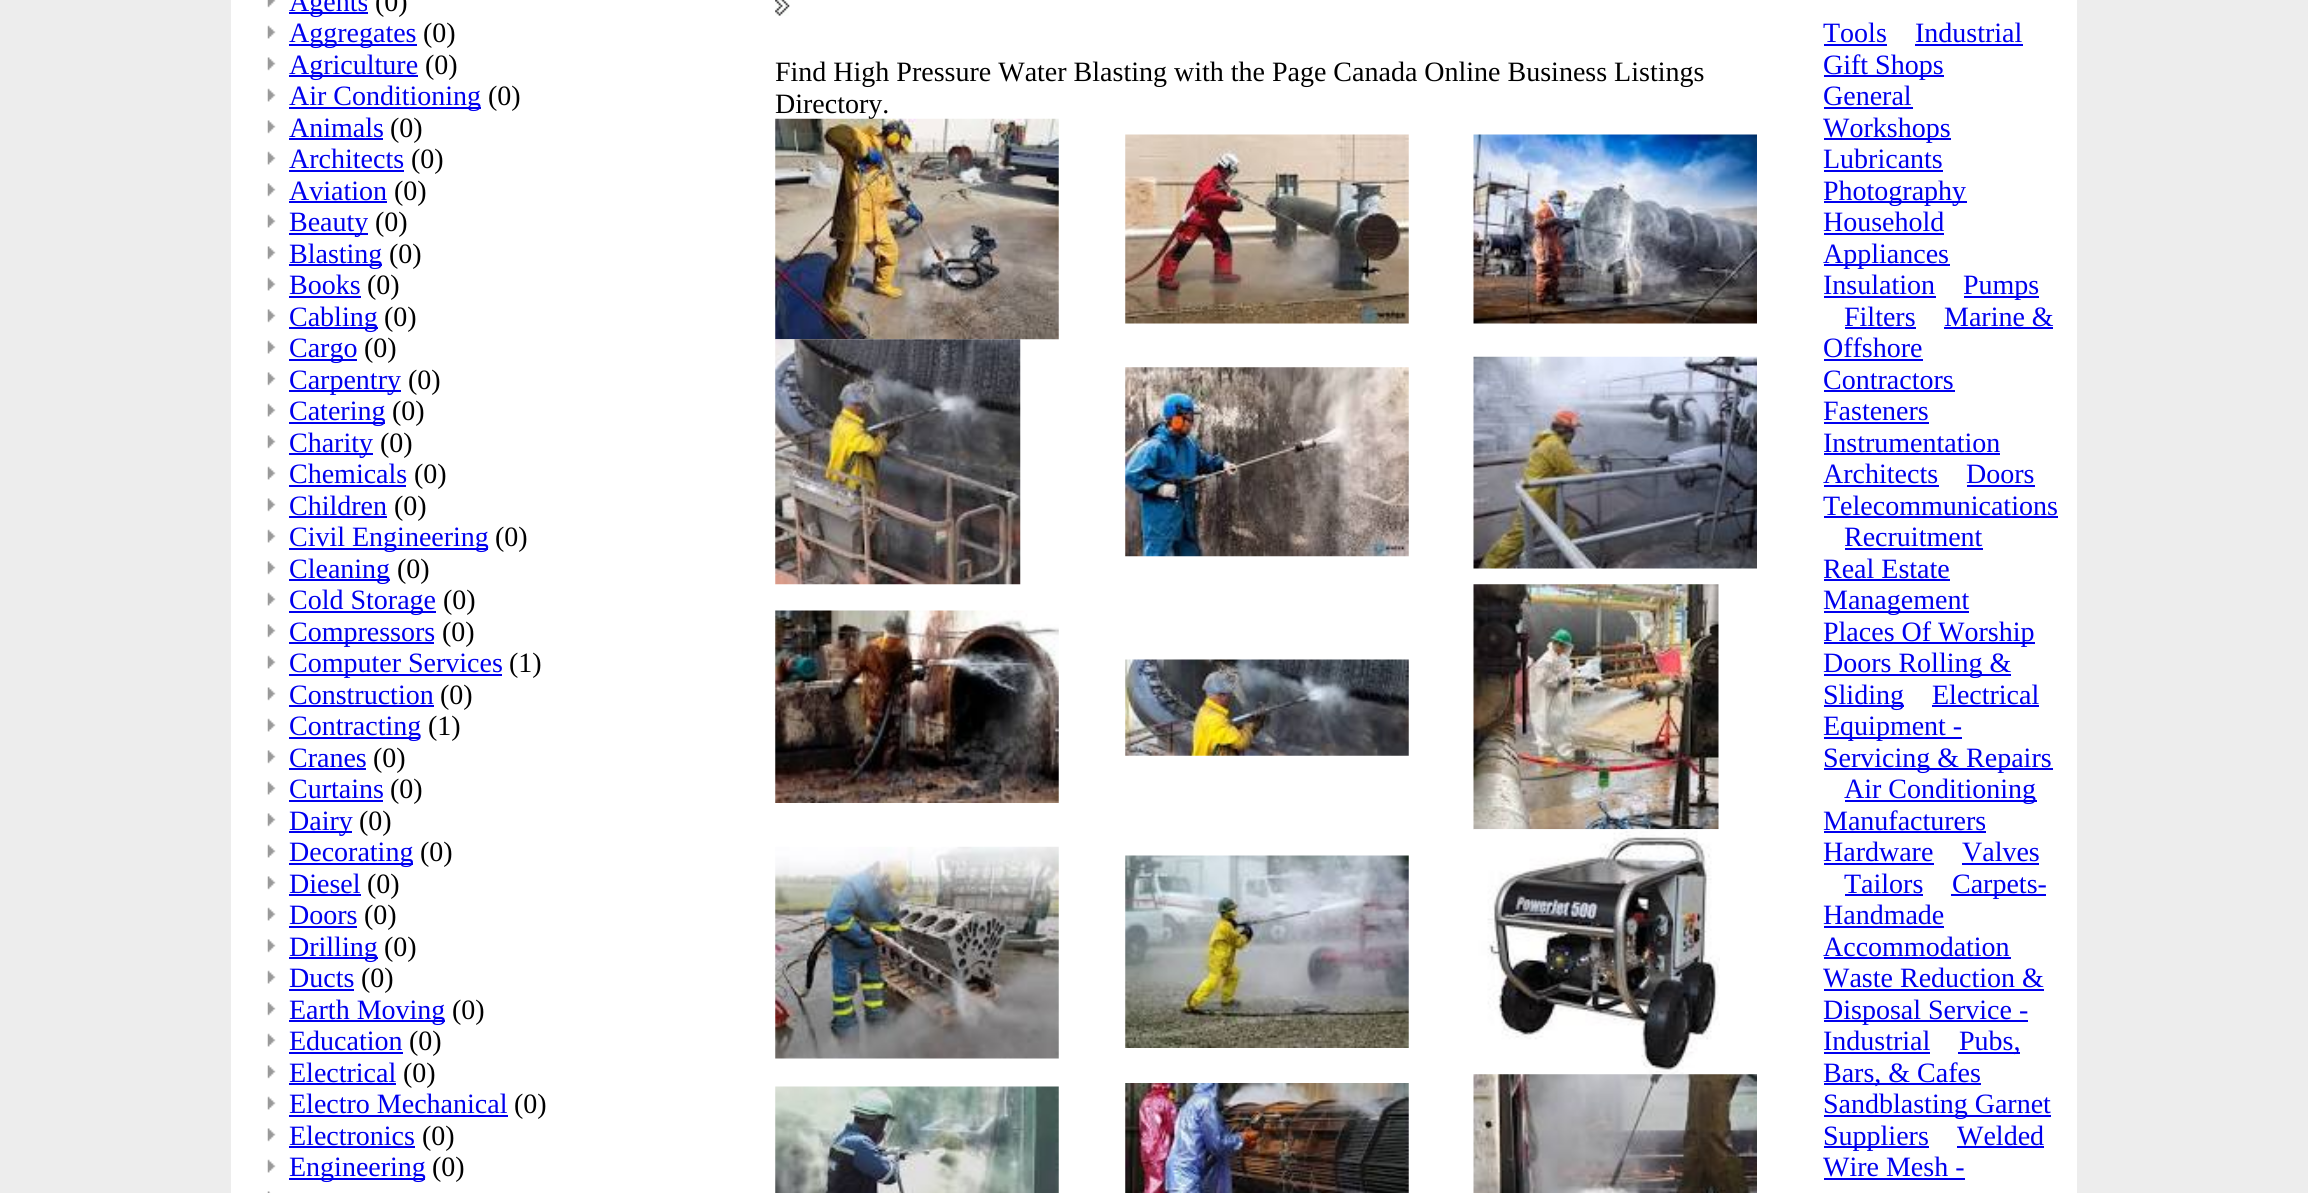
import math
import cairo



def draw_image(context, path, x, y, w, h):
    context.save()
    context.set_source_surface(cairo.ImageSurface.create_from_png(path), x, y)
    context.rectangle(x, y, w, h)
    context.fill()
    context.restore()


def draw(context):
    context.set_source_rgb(237 / 255, 237 / 255, 237 / 255)
    context.paint()
    context.set_source_rgb(1, 1, 1)
    context.rectangle(231, 0, 1846, 1193)
    context.fill()
    draw_image(context, "images/1.png", 267, 0, 9, 8)
    context.set_source_rgb(0, 0, 238 / 255)
    context.rectangle(289, 12, 79, 2)
    context.fill()
    draw_image(context, "images/2.png", 267, 25, 9, 14)
    context.rectangle(289, 44, 128, 2)
    context.fill()
    draw_image(context, "images/3.png", 267, 57, 9, 14)
    context.rectangle(289, 75, 129, 2)
    context.fill()
    draw_image(context, "images/2.png", 267, 88, 9, 14)
    context.rectangle(289, 107, 192, 2)
    context.fill()
    draw_image(context, "images/3.png", 267, 120, 9, 14)
    context.rectangle(289, 138, 94, 2)
    context.fill()
    draw_image(context, "images/2.png", 267, 151, 9, 14)
    context.rectangle(289, 170, 115, 2)
    context.fill()
    draw_image(context, "images/3.png", 267, 183, 9, 14)
    context.rectangle(289, 201, 98, 2)
    context.fill()
    draw_image(context, "images/2.png", 267, 214, 9, 14)
    context.rectangle(289, 233, 79, 2)
    context.fill()
    draw_image(context, "images/3.png", 267, 246, 9, 14)
    context.rectangle(289, 264, 93, 2)
    context.fill()
    draw_image(context, "images/2.png", 267, 277, 9, 14)
    context.rectangle(289, 296, 72, 2)
    context.fill()
    draw_image(context, "images/3.png", 267, 309, 9, 14)
    context.rectangle(289, 327, 89, 2)
    context.fill()
    draw_image(context, "images/2.png", 267, 340, 9, 14)
    context.rectangle(289, 359, 68, 2)
    context.fill()
    draw_image(context, "images/3.png", 267, 372, 9, 14)
    context.rectangle(289, 390, 112, 2)
    context.fill()
    draw_image(context, "images/2.png", 267, 403, 9, 14)
    context.rectangle(289, 422, 96, 2)
    context.fill()
    draw_image(context, "images/3.png", 267, 435, 9, 14)
    context.rectangle(289, 453, 84, 2)
    context.fill()
    draw_image(context, "images/2.png", 267, 466, 9, 14)
    context.rectangle(289, 485, 117, 2)
    context.fill()
    draw_image(context, "images/3.png", 267, 498, 9, 14)
    context.rectangle(289, 516, 98, 2)
    context.fill()
    draw_image(context, "images/2.png", 267, 529, 9, 14)
    context.rectangle(289, 548, 199, 2)
    context.fill()
    draw_image(context, "images/3.png", 267, 561, 9, 14)
    context.rectangle(289, 579, 101, 2)
    context.fill()
    draw_image(context, "images/2.png", 267, 592, 9, 14)
    context.rectangle(289, 611, 147, 2)
    context.fill()
    draw_image(context, "images/3.png", 267, 624, 9, 14)
    context.rectangle(289, 642, 145, 2)
    context.fill()
    draw_image(context, "images/2.png", 267, 655, 9, 14)
    context.rectangle(289, 674, 213, 2)
    context.fill()
    draw_image(context, "images/3.png", 267, 687, 9, 14)
    context.rectangle(289, 705, 145, 2)
    context.fill()
    draw_image(context, "images/2.png", 267, 718, 9, 14)
    context.rectangle(289, 737, 131, 2)
    context.fill()
    draw_image(context, "images/3.png", 267, 750, 9, 14)
    context.rectangle(289, 768, 77, 2)
    context.fill()
    draw_image(context, "images/2.png", 267, 781, 9, 14)
    context.rectangle(289, 800, 94, 2)
    context.fill()
    draw_image(context, "images/3.png", 267, 813, 9, 14)
    context.rectangle(289, 831, 63, 2)
    context.fill()
    draw_image(context, "images/2.png", 267, 844, 9, 14)
    context.rectangle(289, 863, 124, 2)
    context.fill()
    draw_image(context, "images/3.png", 267, 876, 9, 14)
    context.rectangle(289, 894, 72, 2)
    context.fill()
    draw_image(context, "images/2.png", 267, 907, 9, 14)
    context.rectangle(289, 926, 68, 2)
    context.fill()
    draw_image(context, "images/3.png", 267, 939, 9, 14)
    context.rectangle(289, 957, 89, 2)
    context.fill()
    draw_image(context, "images/2.png", 267, 970, 9, 14)
    context.rectangle(289, 989, 65, 2)
    context.fill()
    draw_image(context, "images/3.png", 267, 1002, 9, 14)
    context.rectangle(289, 1020, 156, 2)
    context.fill()
    draw_image(context, "images/2.png", 267, 1033, 9, 14)
    context.rectangle(289, 1052, 114, 2)
    context.fill()
    draw_image(context, "images/3.png", 267, 1065, 9, 14)
    context.rectangle(289, 1083, 107, 2)
    context.fill()
    draw_image(context, "images/2.png", 267, 1096, 9, 14)
    context.rectangle(289, 1115, 219, 2)
    context.fill()
    draw_image(context, "images/3.png", 267, 1128, 9, 14)
    context.rectangle(289, 1146, 126, 2)
    context.fill()
    draw_image(context, "images/2.png", 267, 1159, 9, 14)
    context.rectangle(289, 1178, 136, 2)
    context.fill()
    draw_image(context, "images/4.png", 267, 1191, 4, 2)
    draw_image(context, "images/5.png", 775, 0, 15, 16)
    draw_image(context, "images/7.png", 1125, 134, 284, 190)
    draw_image(context, "images/8.png", 1473, 134, 284, 190)
    draw_image(context, "images/10.png", 1125, 367, 284, 190)
    draw_image(context, "images/11.png", 1473, 356, 284, 213)
    draw_image(context, "images/12.png", 775, 610, 284, 193)
    draw_image(context, "images/13.png", 1125, 659, 284, 97)
    draw_image(context, "images/14.png", 1473, 584, 246, 246)
    draw_image(context, "images/15.png", 775, 846, 284, 213)
    draw_image(context, "images/16.png", 1125, 855, 284, 193)
    draw_image(context, "images/17.png", 1473, 829, 247, 245)
    draw_image(context, "images/18.png", 775, 1086, 284, 107)
    draw_image(context, "images/19.png", 1125, 1083, 284, 110)
    draw_image(context, "images/20.png", 1473, 1074, 284, 119)
    context.rectangle(1824, 44, 63, 2)
    context.fill()
    context.rectangle(1915, 44, 108, 2)
    context.fill()
    context.rectangle(1824, 75, 120, 2)
    context.fill()
    context.rectangle(1824, 107, 89, 2)
    context.fill()
    context.rectangle(1824, 138, 127, 2)
    context.fill()
    context.rectangle(1824, 170, 119, 2)
    context.fill()
    context.rectangle(1824, 201, 143, 2)
    context.fill()
    context.rectangle(1824, 233, 120, 2)
    context.fill()
    context.rectangle(1824, 264, 126, 2)
    context.fill()
    context.rectangle(1824, 296, 112, 2)
    context.fill()
    context.rectangle(1964, 296, 75, 2)
    context.fill()
    context.rectangle(1845, 327, 71, 2)
    context.fill()
    context.rectangle(1944, 327, 109, 2)
    context.fill()
    context.rectangle(1824, 359, 99, 2)
    context.fill()
    context.rectangle(1824, 390, 131, 2)
    context.fill()
    context.rectangle(1824, 422, 105, 2)
    context.fill()
    context.rectangle(1824, 453, 176, 2)
    context.fill()
    context.rectangle(1824, 485, 115, 2)
    context.fill()
    context.rectangle(1967, 485, 68, 2)
    context.fill()
    context.rectangle(1824, 516, 234, 2)
    context.fill()
    context.rectangle(1845, 548, 138, 2)
    context.fill()
    context.rectangle(1824, 579, 126, 2)
    context.fill()
    context.rectangle(1824, 611, 145, 2)
    context.fill()
    context.rectangle(1824, 642, 211, 2)
    context.fill()
    context.rectangle(1824, 674, 187, 2)
    context.fill()
    context.rectangle(1824, 705, 80, 2)
    context.fill()
    context.rectangle(1932, 705, 107, 2)
    context.fill()
    context.rectangle(1824, 737, 138, 2)
    context.fill()
    context.rectangle(1824, 768, 229, 2)
    context.fill()
    context.rectangle(1845, 800, 192, 2)
    context.fill()
    context.rectangle(1824, 831, 162, 2)
    context.fill()
    context.rectangle(1824, 863, 110, 2)
    context.fill()
    context.rectangle(1962, 863, 77, 2)
    context.fill()
    context.rectangle(1845, 894, 78, 2)
    context.fill()
    context.rectangle(1951, 894, 95, 2)
    context.fill()
    context.rectangle(1824, 926, 120, 2)
    context.fill()
    context.rectangle(1824, 957, 187, 2)
    context.fill()
    context.rectangle(1824, 989, 220, 2)
    context.fill()
    context.rectangle(1824, 1020, 204, 2)
    context.fill()
    context.rectangle(1824, 1052, 106, 2)
    context.fill()
    context.rectangle(1958, 1052, 62, 2)
    context.fill()
    context.rectangle(1824, 1083, 157, 2)
    context.fill()
    context.rectangle(1824, 1115, 227, 2)
    context.fill()
    context.rectangle(1824, 1146, 105, 2)
    context.fill()
    context.rectangle(1957, 1146, 87, 2)
    context.fill()
    context.rectangle(1824, 1178, 141, 2)
    context.fill()
    context.select_font_face("Liberation Serif")
    context.set_font_size(28)
    context.move_to(289, 11)
    context.show_text("Agents")
    context.set_source_rgb(0, 0, 0)
    context.move_to(375, 11)
    context.show_text("(0)")
    context.set_source_rgb(0, 0, 238 / 255)
    context.move_to(289, 42)
    context.show_text("Aggregates")
    context.set_source_rgb(0, 0, 0)
    context.move_to(423, 42)
    context.show_text("(0)")
    context.set_source_rgb(0, 0, 238 / 255)
    context.move_to(289, 74)
    context.show_text("Agriculture")
    context.set_source_rgb(0, 0, 0)
    context.move_to(425, 74)
    context.show_text("(0)")
    context.set_source_rgb(0, 0, 238 / 255)
    context.move_to(289, 105)
    context.show_text("Air Conditioning")
    context.set_source_rgb(0, 0, 0)
    context.move_to(488, 105)
    context.show_text("(0)")
    context.set_source_rgb(0, 0, 238 / 255)
    context.move_to(289, 137)
    context.show_text("Animals")
    context.set_source_rgb(0, 0, 0)
    context.move_to(390, 137)
    context.show_text("(0)")
    context.set_source_rgb(0, 0, 238 / 255)
    context.move_to(289, 168)
    context.show_text("Architects")
    context.set_source_rgb(0, 0, 0)
    context.move_to(411, 168)
    context.show_text("(0)")
    context.set_source_rgb(0, 0, 238 / 255)
    context.move_to(289, 200)
    context.show_text("Aviation")
    context.set_source_rgb(0, 0, 0)
    context.move_to(394, 200)
    context.show_text("(0)")
    context.set_source_rgb(0, 0, 238 / 255)
    context.move_to(289, 231)
    context.show_text("Beauty")
    context.set_source_rgb(0, 0, 0)
    context.move_to(375, 231)
    context.show_text("(0)")
    context.set_source_rgb(0, 0, 238 / 255)
    context.move_to(289, 263)
    context.show_text("Blasting")
    context.set_source_rgb(0, 0, 0)
    context.move_to(389, 263)
    context.show_text("(0)")
    context.set_source_rgb(0, 0, 238 / 255)
    context.move_to(289, 294)
    context.show_text("Books")
    context.set_source_rgb(0, 0, 0)
    context.move_to(367, 294)
    context.show_text("(0)")
    context.set_source_rgb(0, 0, 238 / 255)
    context.move_to(289, 326)
    context.show_text("Cabling")
    context.set_source_rgb(0, 0, 0)
    context.move_to(384, 326)
    context.show_text("(0)")
    context.set_source_rgb(0, 0, 238 / 255)
    context.move_to(289, 357)
    context.show_text("Cargo")
    context.set_source_rgb(0, 0, 0)
    context.move_to(364, 357)
    context.show_text("(0)")
    context.set_source_rgb(0, 0, 238 / 255)
    context.move_to(289, 389)
    context.show_text("Carpentry")
    context.set_source_rgb(0, 0, 0)
    context.move_to(408, 389)
    context.show_text("(0)")
    context.set_source_rgb(0, 0, 238 / 255)
    context.move_to(289, 420)
    context.show_text("Catering")
    context.set_source_rgb(0, 0, 0)
    context.move_to(392, 420)
    context.show_text("(0)")
    context.set_source_rgb(0, 0, 238 / 255)
    context.move_to(289, 452)
    context.show_text("Charity")
    context.set_source_rgb(0, 0, 0)
    context.move_to(380, 452)
    context.show_text("(0)")
    context.set_source_rgb(0, 0, 238 / 255)
    context.move_to(289, 483)
    context.show_text("Chemicals")
    context.set_source_rgb(0, 0, 0)
    context.move_to(414, 483)
    context.show_text("(0)")
    context.set_source_rgb(0, 0, 238 / 255)
    context.move_to(289, 515)
    context.show_text("Children")
    context.set_source_rgb(0, 0, 0)
    context.move_to(394, 515)
    context.show_text("(0)")
    context.set_source_rgb(0, 0, 238 / 255)
    context.move_to(289, 546)
    context.show_text("Civil Engineering")
    context.set_source_rgb(0, 0, 0)
    context.move_to(495, 546)
    context.show_text("(0)")
    context.set_source_rgb(0, 0, 238 / 255)
    context.move_to(289, 578)
    context.show_text("Cleaning")
    context.set_source_rgb(0, 0, 0)
    context.move_to(397, 578)
    context.show_text("(0)")
    context.set_source_rgb(0, 0, 238 / 255)
    context.move_to(289, 609)
    context.show_text("Cold Storage")
    context.set_source_rgb(0, 0, 0)
    context.move_to(443, 609)
    context.show_text("(0)")
    context.set_source_rgb(0, 0, 238 / 255)
    context.move_to(289, 641)
    context.show_text("Compressors")
    context.set_source_rgb(0, 0, 0)
    context.move_to(442, 641)
    context.show_text("(0)")
    context.set_source_rgb(0, 0, 238 / 255)
    context.move_to(289, 672)
    context.show_text("Computer Services")
    context.set_source_rgb(0, 0, 0)
    context.move_to(509, 672)
    context.show_text("(1)")
    context.set_source_rgb(0, 0, 238 / 255)
    context.move_to(289, 704)
    context.show_text("Construction")
    context.set_source_rgb(0, 0, 0)
    context.move_to(440, 704)
    context.show_text("(0)")
    context.set_source_rgb(0, 0, 238 / 255)
    context.move_to(289, 735)
    context.show_text("Contracting")
    context.set_source_rgb(0, 0, 0)
    context.move_to(428, 735)
    context.show_text("(1)")
    context.set_source_rgb(0, 0, 238 / 255)
    context.move_to(289, 767)
    context.show_text("Cranes")
    context.set_source_rgb(0, 0, 0)
    context.move_to(373, 767)
    context.show_text("(0)")
    context.set_source_rgb(0, 0, 238 / 255)
    context.move_to(289, 798)
    context.show_text("Curtains")
    context.set_source_rgb(0, 0, 0)
    context.move_to(390, 798)
    context.show_text("(0)")
    context.set_source_rgb(0, 0, 238 / 255)
    context.move_to(289, 830)
    context.show_text("Dairy")
    context.set_source_rgb(0, 0, 0)
    context.move_to(359, 830)
    context.show_text("(0)")
    context.set_source_rgb(0, 0, 238 / 255)
    context.move_to(289, 861)
    context.show_text("Decorating")
    context.set_source_rgb(0, 0, 0)
    context.move_to(420, 861)
    context.show_text("(0)")
    context.set_source_rgb(0, 0, 238 / 255)
    context.move_to(289, 893)
    context.show_text("Diesel")
    context.set_source_rgb(0, 0, 0)
    context.move_to(367, 893)
    context.show_text("(0)")
    context.set_source_rgb(0, 0, 238 / 255)
    context.move_to(289, 924)
    context.show_text("Doors")
    context.set_source_rgb(0, 0, 0)
    context.move_to(364, 924)
    context.show_text("(0)")
    context.set_source_rgb(0, 0, 238 / 255)
    context.move_to(289, 956)
    context.show_text("Drilling")
    context.set_source_rgb(0, 0, 0)
    context.move_to(384, 956)
    context.show_text("(0)")
    context.set_source_rgb(0, 0, 238 / 255)
    context.move_to(289, 987)
    context.show_text("Ducts")
    context.set_source_rgb(0, 0, 0)
    context.move_to(361, 987)
    context.show_text("(0)")
    context.set_source_rgb(0, 0, 238 / 255)
    context.move_to(289, 1019)
    context.show_text("Earth Moving")
    context.set_source_rgb(0, 0, 0)
    context.move_to(452, 1019)
    context.show_text("(0)")
    context.set_source_rgb(0, 0, 238 / 255)
    context.move_to(289, 1050)
    context.show_text("Education")
    context.set_source_rgb(0, 0, 0)
    context.move_to(409, 1050)
    context.show_text("(0)")
    context.set_source_rgb(0, 0, 238 / 255)
    context.move_to(289, 1082)
    context.show_text("Electrical")
    context.set_source_rgb(0, 0, 0)
    context.move_to(403, 1082)
    context.show_text("(0)")
    context.set_source_rgb(0, 0, 238 / 255)
    context.move_to(289, 1113)
    context.show_text("Electro Mechanical")
    context.set_source_rgb(0, 0, 0)
    context.move_to(514, 1113)
    context.show_text("(0)")
    context.set_source_rgb(0, 0, 238 / 255)
    context.move_to(289, 1145)
    context.show_text("Electronics")
    context.set_source_rgb(0, 0, 0)
    context.move_to(422, 1145)
    context.show_text("(0)")
    context.set_source_rgb(0, 0, 238 / 255)
    context.move_to(289, 1176)
    context.show_text("Engineering")
    context.set_source_rgb(0, 0, 0)
    context.move_to(432, 1176)
    context.show_text("(0)")
    context.move_to(775, 81)
    context.show_text("Find High Pressure Water Blasting with the Page Canada Online Business Listings")
    context.move_to(775, 113)
    context.show_text("Directory.")
    draw_image(context, "images/6.png", 775, 118, 284, 222)
    draw_image(context, "images/9.png", 775, 339, 246, 246)
    context.set_source_rgb(0, 0, 238 / 255)
    context.move_to(1823, 42)
    context.show_text("Tools")
    context.move_to(1915, 42)
    context.show_text("Industrial")
    context.move_to(1823, 74)
    context.show_text("Gift Shops")
    context.move_to(1823, 105)
    context.show_text("General")
    context.move_to(1823, 137)
    context.show_text("Workshops")
    context.move_to(1823, 168)
    context.show_text("Lubricants")
    context.move_to(1823, 200)
    context.show_text("Photography")
    context.move_to(1823, 231)
    context.show_text("Household")
    context.move_to(1823, 263)
    context.show_text("Appliances")
    context.move_to(1823, 294)
    context.show_text("Insulation")
    context.move_to(1963, 294)
    context.show_text("Pumps")
    context.move_to(1844, 326)
    context.show_text("Filters")
    context.move_to(1944, 326)
    context.show_text("Marine &")
    context.move_to(1823, 357)
    context.show_text("Offshore")
    context.move_to(1823, 389)
    context.show_text("Contractors")
    context.move_to(1823, 420)
    context.show_text("Fasteners")
    context.move_to(1823, 452)
    context.show_text("Instrumentation")
    context.move_to(1823, 483)
    context.show_text("Architects")
    context.move_to(1966, 483)
    context.show_text("Doors")
    context.move_to(1823, 515)
    context.show_text("Telecommunications")
    context.move_to(1844, 546)
    context.show_text("Recruitment")
    context.move_to(1823, 578)
    context.show_text("Real Estate")
    context.move_to(1823, 609)
    context.show_text("Management")
    context.move_to(1823, 641)
    context.show_text("Places Of Worship")
    context.move_to(1823, 672)
    context.show_text("Doors Rolling &")
    context.move_to(1823, 704)
    context.show_text("Sliding")
    context.move_to(1932, 704)
    context.show_text("Electrical")
    context.move_to(1823, 735)
    context.show_text("Equipment -")
    context.move_to(1823, 767)
    context.show_text("Servicing & Repairs")
    context.move_to(1844, 798)
    context.show_text("Air Conditioning")
    context.move_to(1823, 830)
    context.show_text("Manufacturers")
    context.move_to(1823, 861)
    context.show_text("Hardware")
    context.move_to(1962, 861)
    context.show_text("Valves")
    context.move_to(1844, 893)
    context.show_text("Tailors")
    context.move_to(1952, 893)
    context.show_text("Carpets-")
    context.move_to(1823, 924)
    context.show_text("Handmade")
    context.move_to(1823, 956)
    context.show_text("Accommodation")
    context.move_to(1823, 987)
    context.show_text("Waste Reduction &")
    context.move_to(1823, 1019)
    context.show_text("Disposal Service -")
    context.move_to(1823, 1050)
    context.show_text("Industrial")
    context.move_to(1959, 1050)
    context.show_text("Pubs,")
    context.move_to(1823, 1082)
    context.show_text("Bars, & Cafes")
    context.move_to(1823, 1113)
    context.show_text("Sandblasting Garnet")
    context.move_to(1823, 1145)
    context.show_text("Suppliers")
    context.move_to(1957, 1145)
    context.show_text("Welded")
    context.move_to(1823, 1176)
    context.show_text("Wire Mesh -")


surface = cairo.ImageSurface(cairo.Format.RGB24, 2308, 1193)
context = cairo.Context(surface)
options = cairo.FontOptions()
options.set_hint_metrics(cairo.HintMetrics.OFF)
options.set_hint_style(cairo.HintStyle.NONE)
context.set_font_options(options)
context.set_miter_limit(4)
draw(context)
surface.write_to_png("out.png")
